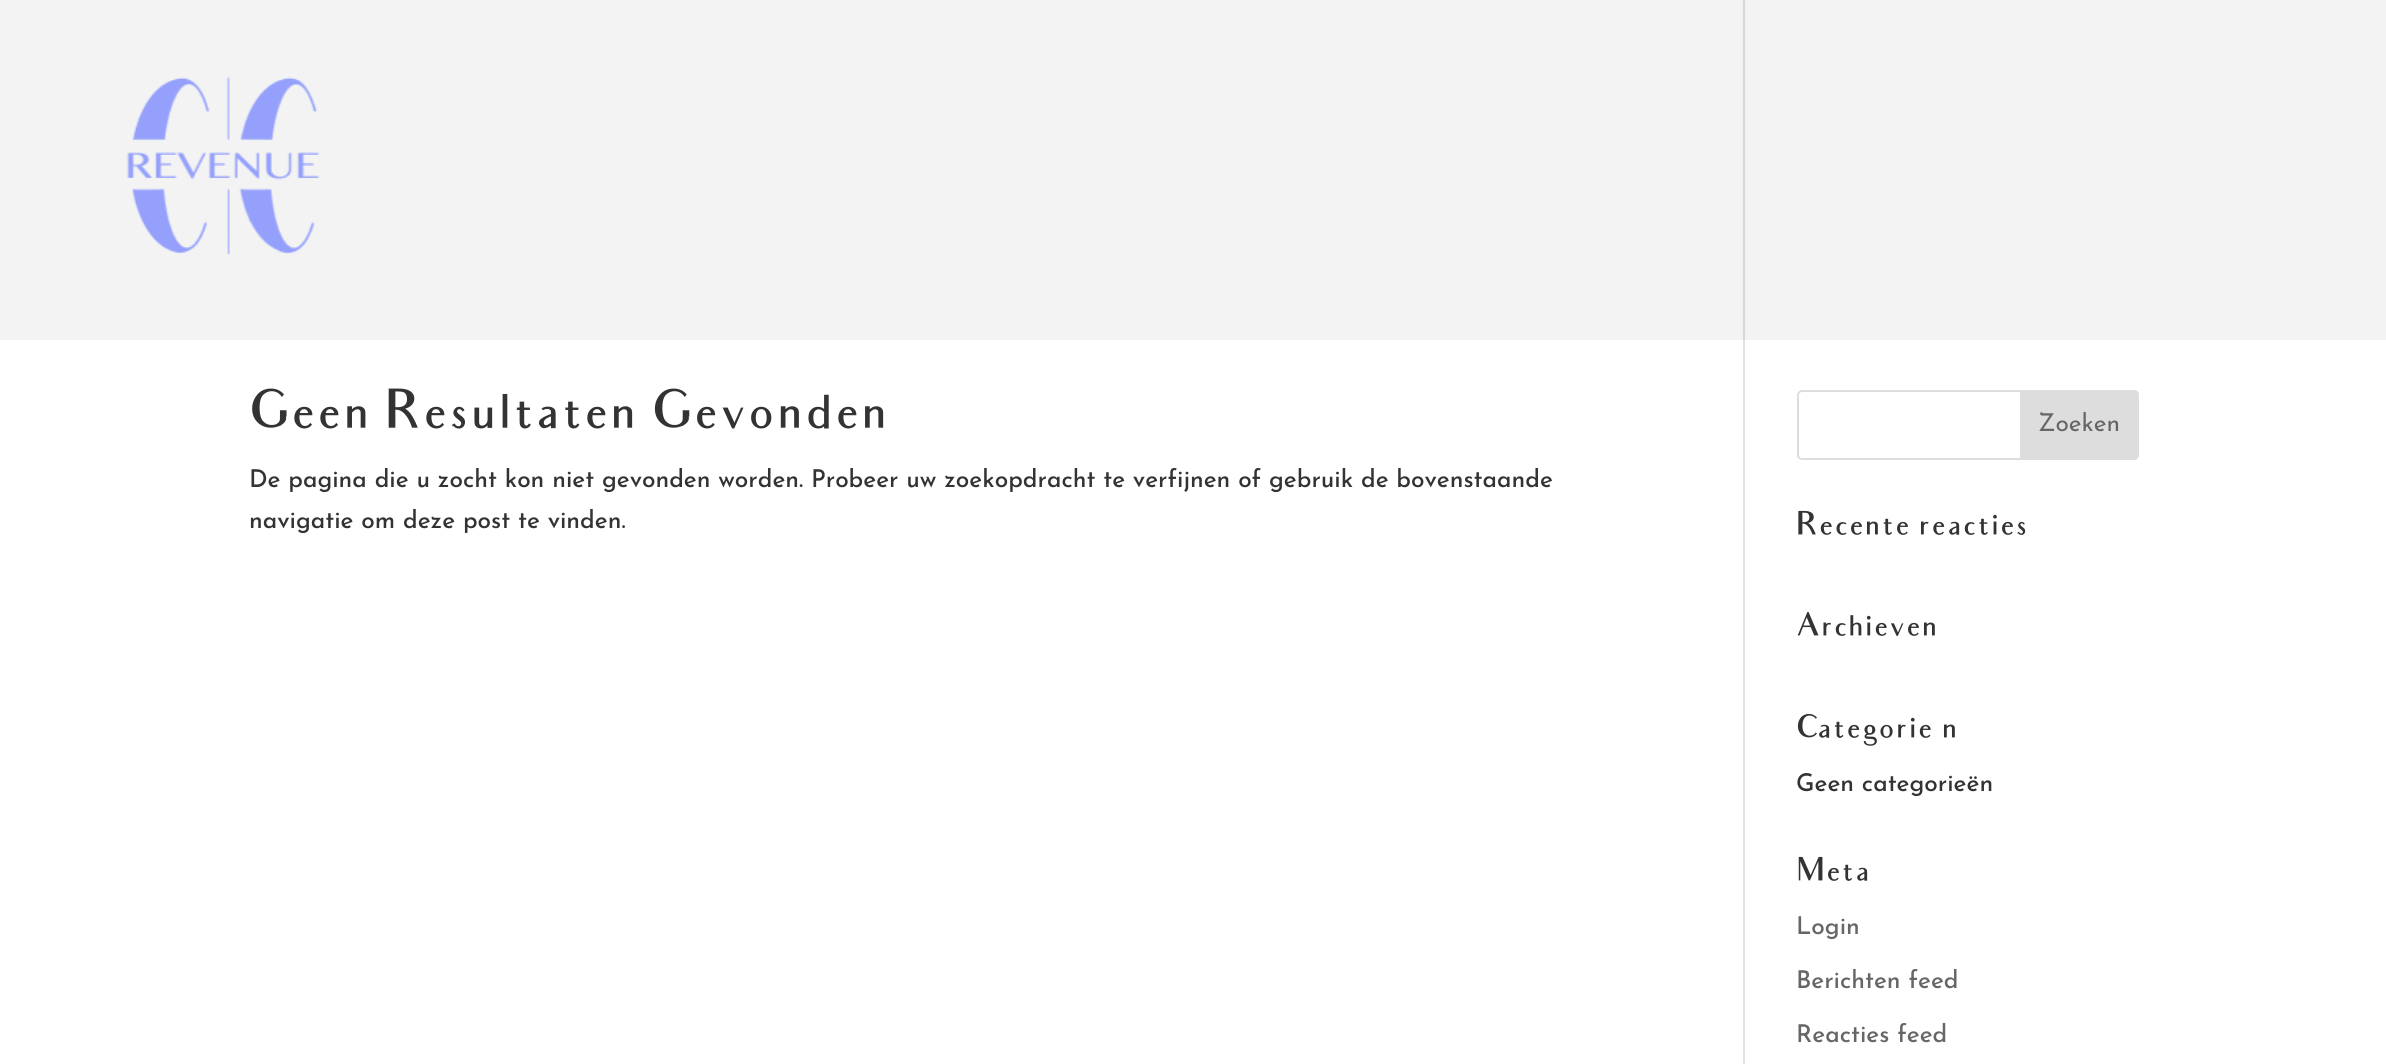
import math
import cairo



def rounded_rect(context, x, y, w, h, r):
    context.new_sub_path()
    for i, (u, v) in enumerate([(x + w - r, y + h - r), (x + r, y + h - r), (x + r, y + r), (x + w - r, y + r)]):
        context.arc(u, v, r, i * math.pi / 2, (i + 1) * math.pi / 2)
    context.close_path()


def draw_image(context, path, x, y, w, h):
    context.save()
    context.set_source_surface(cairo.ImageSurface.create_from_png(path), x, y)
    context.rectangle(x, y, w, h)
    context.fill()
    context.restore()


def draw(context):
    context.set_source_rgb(1, 1, 1)
    context.paint()
    context.set_source_rgb(243 / 255, 243 / 255, 243 / 255)
    context.rectangle(0, 0, 2386, 340)
    context.fill()
    draw_image(context, "images/1.png", 126, 77, 194, 178)
    context.set_source_rgb(226 / 255, 226 / 255, 226 / 255)
    context.rectangle(1743, 340, 2, 724)
    context.fill()
    context.set_source_rgb(215 / 255, 215 / 255, 215 / 255)
    context.rectangle(1743, 0, 2, 340)
    context.fill()
    rounded_rect(context, 1798, 391, 340, 68, 4)
    context.set_source_rgb(221 / 255, 221 / 255, 221 / 255)
    context.stroke()
    context.new_path()
    context.move_to(2021, 391)
    context.line_to(2134, 391)
    context.curve_to(2136, 391, 2138, 393, 2138, 395)
    context.line_to(2138, 455)
    context.curve_to(2138, 457, 2136, 459, 2134, 459)
    context.line_to(2021, 459)
    context.close_path()
    context.fill_preserve()
    context.stroke()
    context.select_font_face("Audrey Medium")
    context.set_font_size(52.5)
    context.set_source_rgb(51 / 255, 51 / 255, 51 / 255)
    context.move_to(249, 427)
    context.show_text("Geen Resultaten Gevonden")
    context.select_font_face("Josefin Sans Thin")
    context.set_font_size(24.5)
    context.move_to(249, 487)
    context.show_text("De pagina die u zocht kon niet gevonden worden. Probeer uw zoekopdracht te verfijnen of gebruik de bovenstaande")
    context.move_to(249, 528)
    context.show_text("navigatie om deze post te vinden.")
    context.select_font_face("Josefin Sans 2 Thin")
    context.set_source_rgb(102 / 255, 102 / 255, 102 / 255)
    context.move_to(2038, 431)
    context.show_text("Zoeken")
    context.select_font_face("Audrey Medium")
    context.set_font_size(31.5)
    context.set_source_rgb(51 / 255, 51 / 255, 51 / 255)
    context.move_to(1796, 534)
    context.show_text("Recente reacties")
    context.move_to(1796, 635)
    context.show_text("Archieven")
    context.move_to(1796, 737)
    context.show_text("Categorieën")
    context.select_font_face("Josefin Sans Thin")
    context.set_font_size(24.5)
    context.move_to(1796, 791)
    context.show_text("Geen categorieën")
    context.select_font_face("Audrey Medium")
    context.set_font_size(31.5)
    context.move_to(1796, 880)
    context.show_text("Meta")
    context.select_font_face("Josefin Sans Thin")
    context.set_font_size(24.5)
    context.set_source_rgb(102 / 255, 102 / 255, 102 / 255)
    context.move_to(1796, 934)
    context.show_text("Login")
    context.move_to(1796, 988)
    context.show_text("Berichten feed")
    context.move_to(1796, 1042)
    context.show_text("Reacties feed")


surface = cairo.ImageSurface(cairo.Format.RGB24, 2386, 1064)
context = cairo.Context(surface)
options = cairo.FontOptions()
options.set_hint_metrics(cairo.HintMetrics.OFF)
options.set_hint_style(cairo.HintStyle.NONE)
context.set_font_options(options)
context.set_miter_limit(4)
draw(context)
surface.write_to_png("out.png")
